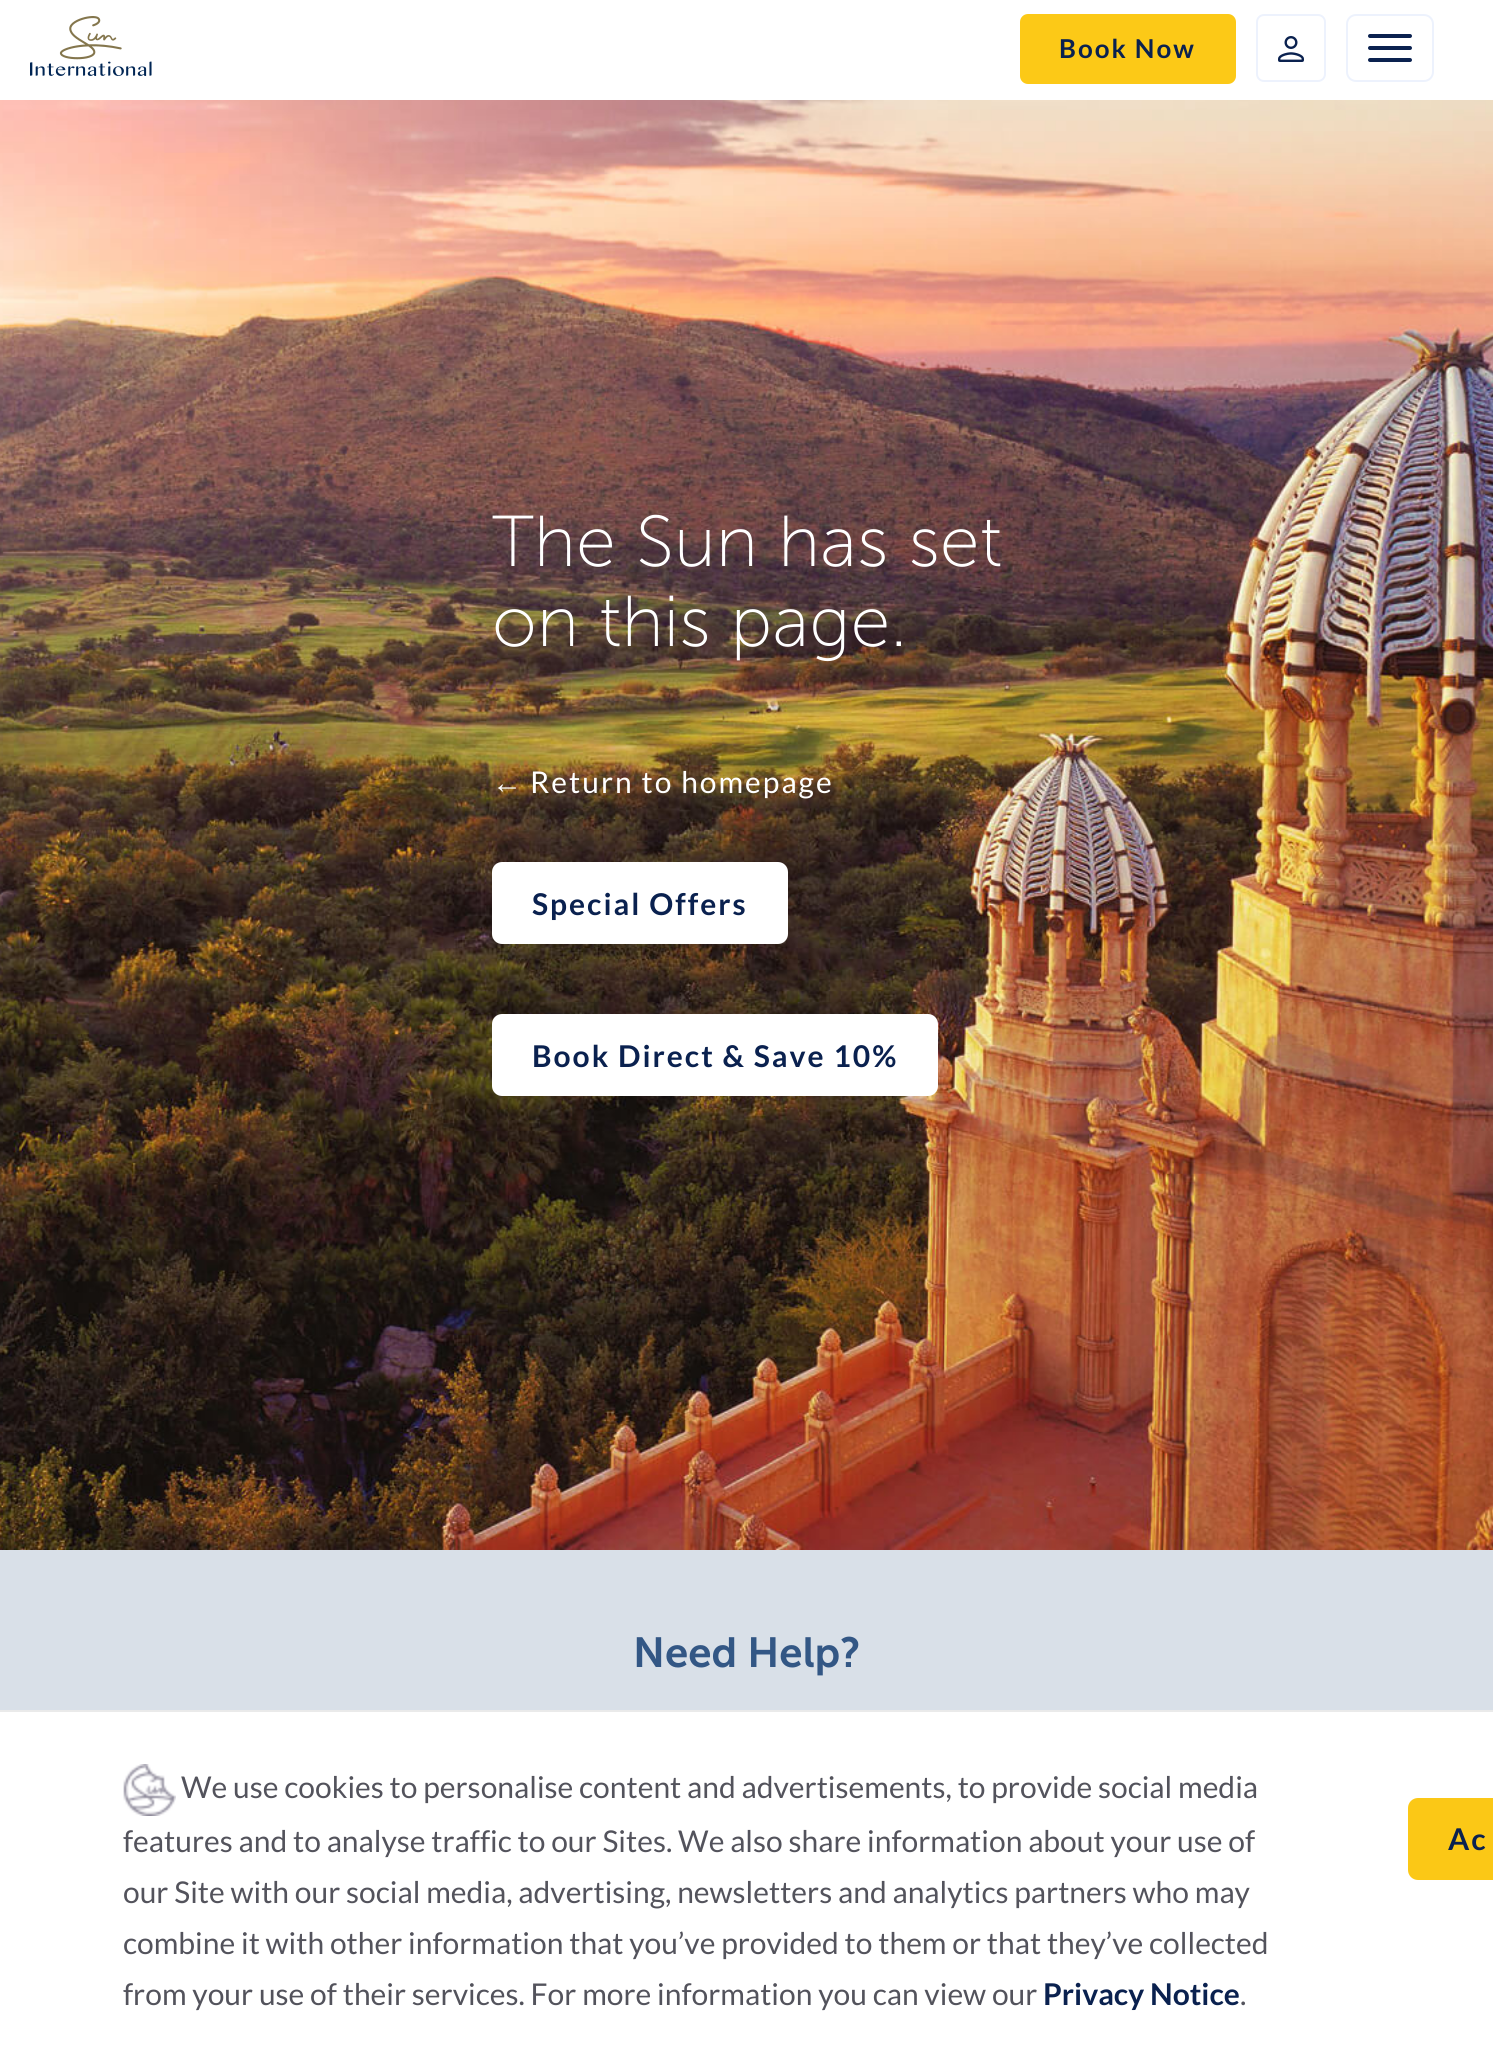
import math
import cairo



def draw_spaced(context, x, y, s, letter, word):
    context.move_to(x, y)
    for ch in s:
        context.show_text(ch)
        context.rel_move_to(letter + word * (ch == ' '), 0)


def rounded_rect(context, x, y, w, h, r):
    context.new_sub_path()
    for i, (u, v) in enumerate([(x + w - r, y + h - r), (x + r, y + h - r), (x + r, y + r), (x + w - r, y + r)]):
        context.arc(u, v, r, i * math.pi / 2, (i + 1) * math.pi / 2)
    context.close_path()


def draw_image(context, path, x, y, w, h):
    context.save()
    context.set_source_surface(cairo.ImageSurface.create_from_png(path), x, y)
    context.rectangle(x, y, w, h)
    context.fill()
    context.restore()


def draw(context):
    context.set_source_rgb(1, 1, 1)
    context.paint()
    draw_image(context, "images/1.png", 30, 16, 122, 60)
    context.set_source_rgb(252 / 255, 201 / 255, 23 / 255)
    rounded_rect(context, 1020, 14, 216, 70, 8)
    context.fill()
    rounded_rect(context, 1257, 15, 68, 66, 7)
    context.set_source_rgb(237 / 255, 242 / 255, 253 / 255)
    context.stroke()
    draw_image(context, "images/2.png", 1278, 36, 26, 26)
    rounded_rect(context, 1347, 15, 86, 66, 9)
    context.stroke()
    context.set_source_rgb(10 / 255, 33 / 255, 79 / 255)
    rounded_rect(context, 1368, 34, 44, 4, 2)
    context.fill()
    rounded_rect(context, 1368, 46, 44, 4, 2)
    context.fill()
    rounded_rect(context, 1368, 58, 44, 4, 2)
    context.fill()
    draw_image(context, "images/3.png", 0, 100, 1493, 1450)
    context.set_source_rgb(1, 1, 1)
    rounded_rect(context, 494, 864, 292, 78, 8)
    context.fill_preserve()
    context.set_line_width(4)
    context.stroke()
    rounded_rect(context, 494, 1016, 442, 78, 8)
    context.fill_preserve()
    context.stroke()
    context.set_source_rgb(217 / 255, 224 / 255, 232 / 255)
    context.rectangle(0, 1550, 1493, 160)
    context.fill()
    context.set_source_rgb(234 / 255, 234 / 255, 234 / 255)
    context.rectangle(0, 1710, 1493, 2)
    context.fill()
    draw_image(context, "images/4.png", 123, 1764, 53, 52)
    context.set_source_rgb(251 / 255, 200 / 255, 22 / 255)
    rounded_rect(context, 1410, 1800, 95, 78, 8)
    context.fill_preserve()
    context.stroke()
    context.select_font_face("Lato", cairo.FontSlant.NORMAL, cairo.FontWeight.BOLD)
    context.set_font_size(26)
    context.set_source_rgb(10 / 255, 33 / 255, 79 / 255)
    draw_spaced(context, 1059, 58, "Book Now", 2, 0)
    context.select_font_face("Museo Sans ExtraLight")
    context.set_font_size(72)
    context.set_source_rgb(1, 1, 1)
    context.move_to(492, 566)
    context.show_text("The Sun has set")
    context.move_to(492, 646)
    context.show_text("on this page.")
    context.select_font_face("Liberation Serif")
    context.set_font_size(30)
    draw_spaced(context, 492, 793, "←", 2, 0)
    context.select_font_face("Lato")
    draw_spaced(context, 530, 793, "Return to homepage", 2, 0)
    context.select_font_face("Lato", cairo.FontSlant.NORMAL, cairo.FontWeight.BOLD)
    context.set_source_rgb(10 / 255, 33 / 255, 79 / 255)
    draw_spaced(context, 532, 915, "Special Offers", 2, 0)
    draw_spaced(context, 532, 1067, "Book Direct & Save 10%", 2, 0)
    context.select_font_face("Museo Sans SemiBold")
    context.set_font_size(42)
    context.set_source_rgb(51 / 255, 87 / 255, 133 / 255)
    context.move_to(633, 1667)
    context.show_text("Need Help?")
    context.select_font_face("Lato")
    context.set_font_size(30)
    context.set_source_rgb(83 / 255, 83 / 255, 92 / 255)
    context.move_to(181, 1798)
    context.show_text("We use cookies to personalise content and advertisements, to provide social media")
    context.move_to(123, 1852)
    context.show_text("features and to analyse traffic to our Sites. We also share information about your use of")
    context.move_to(123, 1903)
    context.show_text("our Site with our social media, advertising, newsletters and analytics partners who may")
    context.move_to(123, 1954)
    context.show_text("combine it with other information that you’ve provided to them or that they’ve collected")
    context.move_to(123, 2005)
    context.show_text("from your use of their services. For more information you can view our")
    context.select_font_face("Lato", cairo.FontSlant.NORMAL, cairo.FontWeight.BOLD)
    context.set_source_rgb(10 / 255, 33 / 255, 79 / 255)
    context.move_to(1043, 2005)
    context.show_text("Privacy Notice")
    context.select_font_face("Lato")
    context.set_source_rgb(83 / 255, 83 / 255, 92 / 255)
    context.move_to(1240, 2005)
    context.show_text(".")
    context.select_font_face("Lato", cairo.FontSlant.NORMAL, cairo.FontWeight.BOLD)
    context.set_source_rgb(10 / 255, 33 / 255, 79 / 255)
    draw_spaced(context, 1448, 1850, "Ac", 2, 0)


surface = cairo.ImageSurface(cairo.Format.RGB24, 1493, 2069)
context = cairo.Context(surface)
options = cairo.FontOptions()
options.set_hint_metrics(cairo.HintMetrics.OFF)
options.set_hint_style(cairo.HintStyle.NONE)
context.set_font_options(options)
context.set_miter_limit(4)
draw(context)
surface.write_to_png("out.png")
